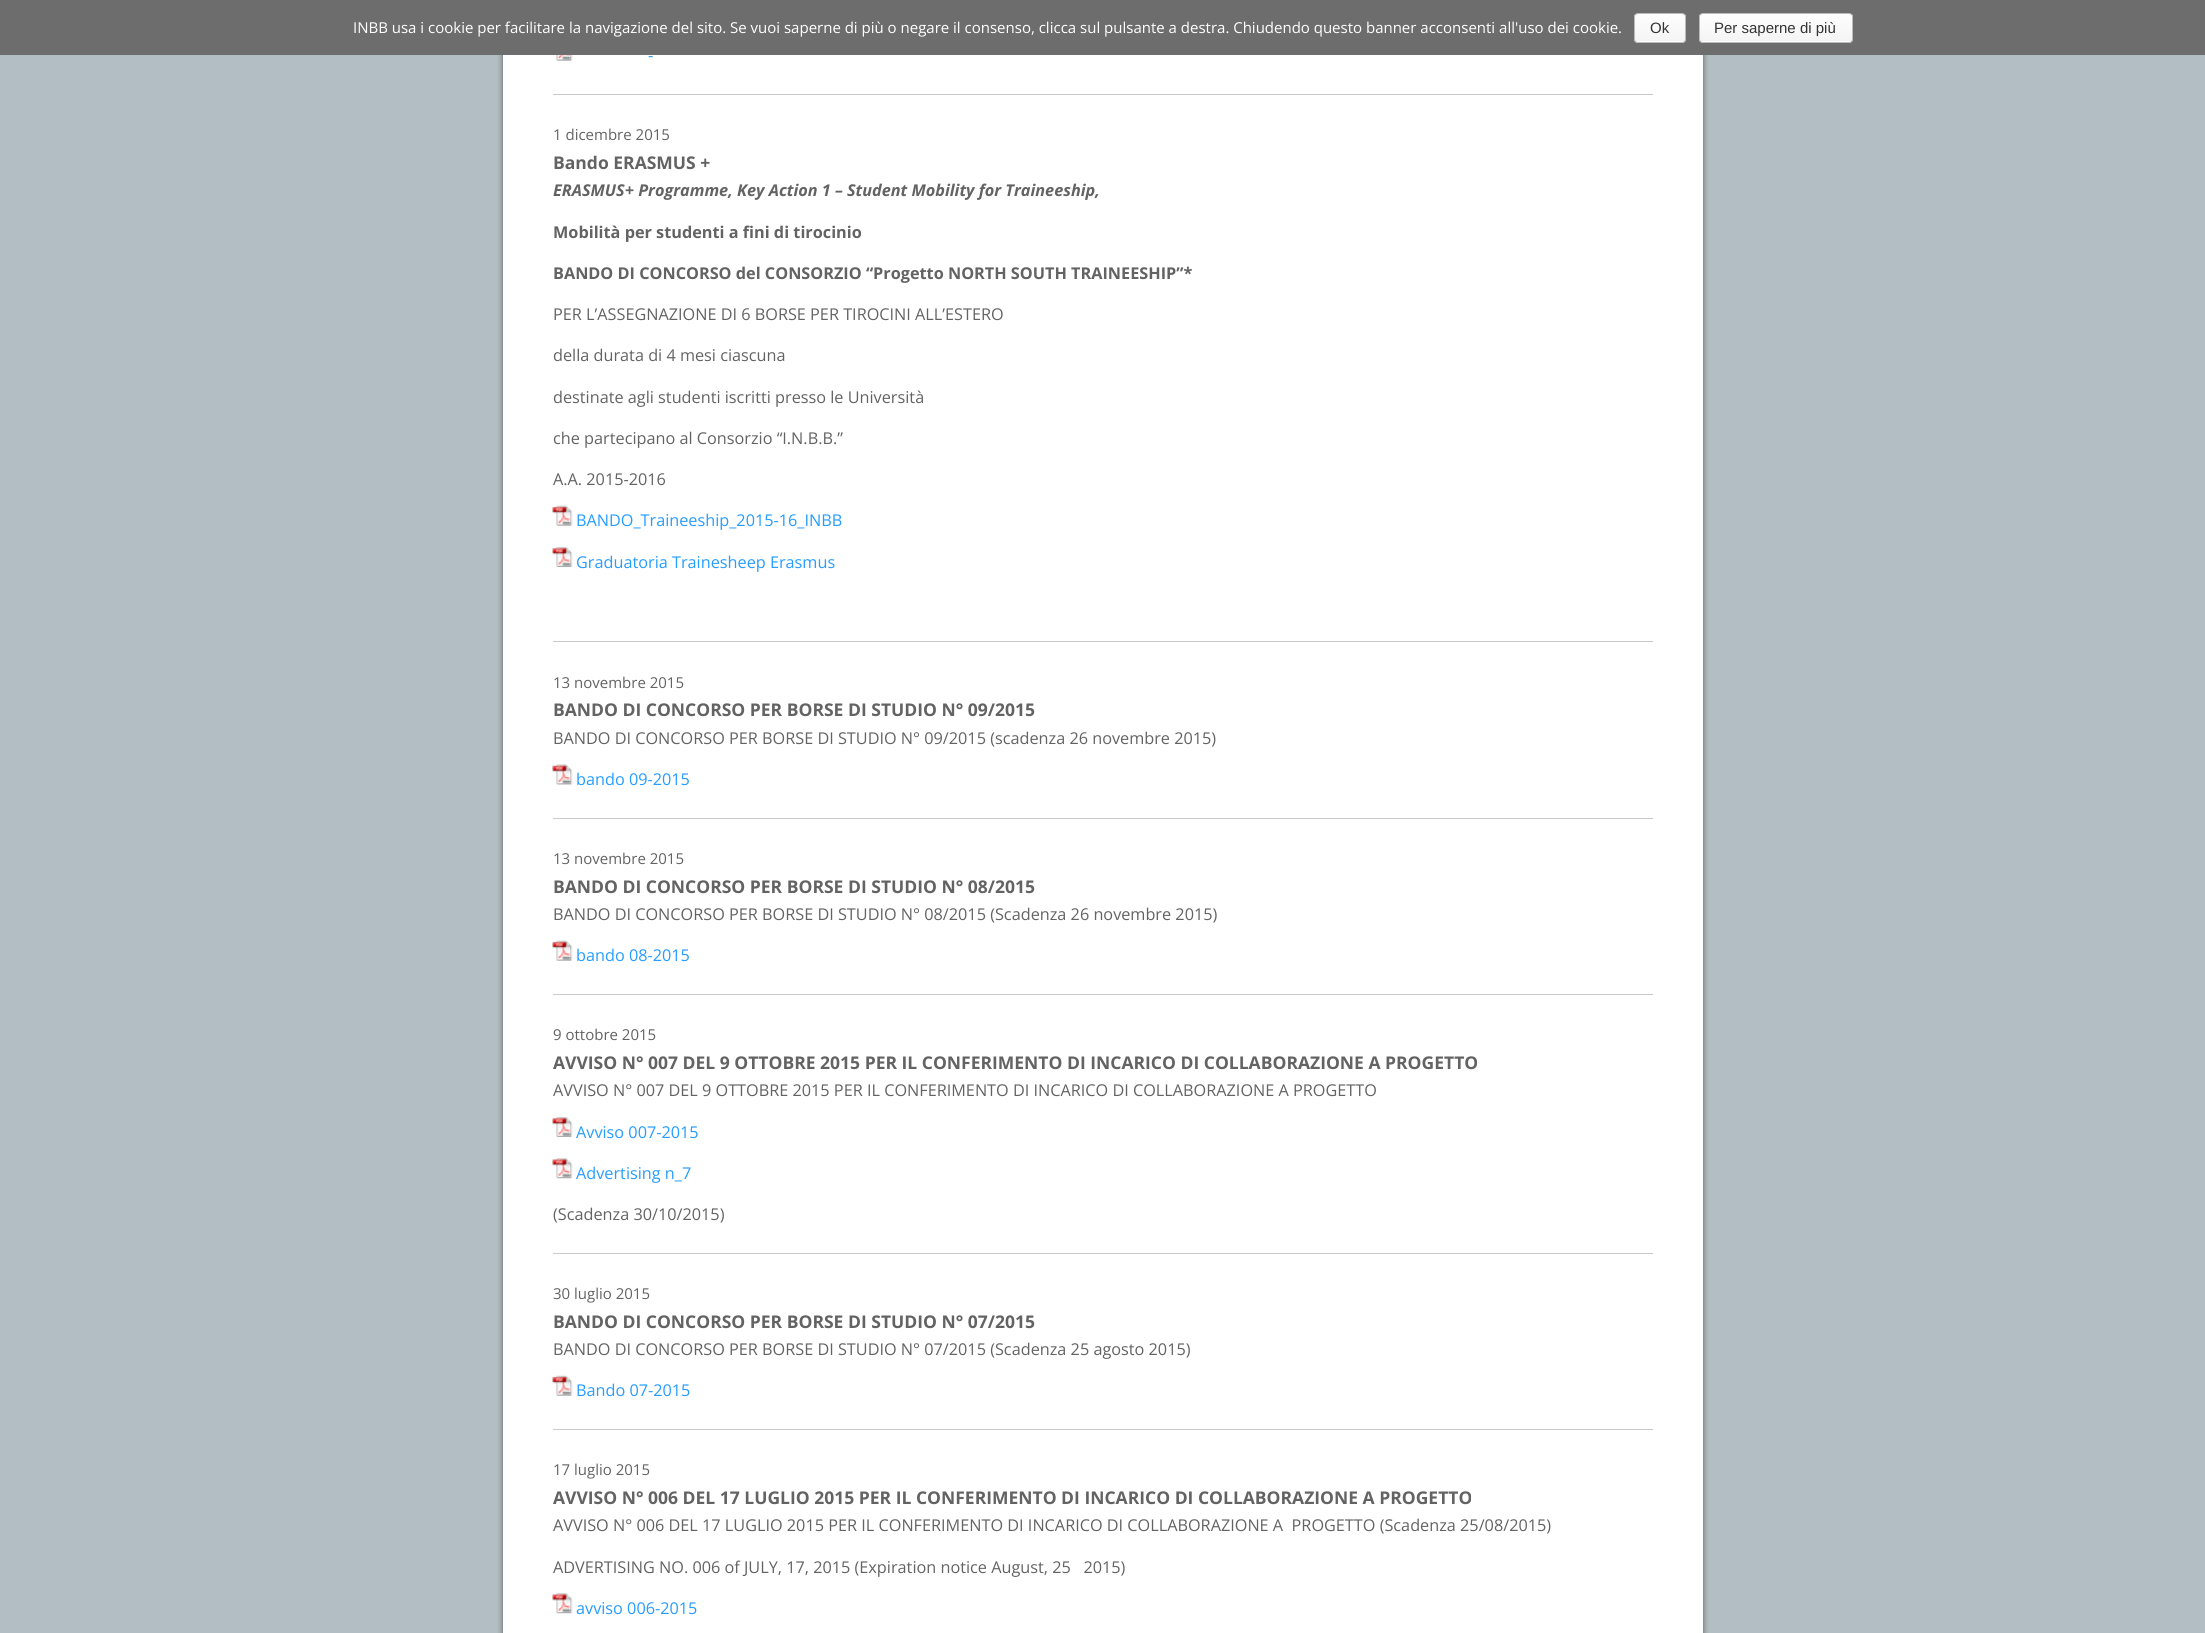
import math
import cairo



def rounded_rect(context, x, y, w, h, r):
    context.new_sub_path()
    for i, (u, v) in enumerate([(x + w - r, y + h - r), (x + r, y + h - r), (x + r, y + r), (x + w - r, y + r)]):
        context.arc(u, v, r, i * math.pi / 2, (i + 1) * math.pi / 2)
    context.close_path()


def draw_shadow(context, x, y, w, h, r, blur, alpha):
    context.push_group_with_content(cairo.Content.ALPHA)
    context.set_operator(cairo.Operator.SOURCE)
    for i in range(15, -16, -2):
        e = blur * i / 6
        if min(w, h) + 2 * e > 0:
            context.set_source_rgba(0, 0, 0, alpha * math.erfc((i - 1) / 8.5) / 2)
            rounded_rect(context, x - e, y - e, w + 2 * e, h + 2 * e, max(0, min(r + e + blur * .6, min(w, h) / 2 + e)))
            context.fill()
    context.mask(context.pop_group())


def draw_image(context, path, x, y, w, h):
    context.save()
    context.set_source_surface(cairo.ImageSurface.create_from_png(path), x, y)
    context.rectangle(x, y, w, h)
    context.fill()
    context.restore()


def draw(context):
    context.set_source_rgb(178 / 255, 190 / 255, 195 / 255)
    context.paint()
    context.set_source_rgb(50 / 255, 50 / 255, 50 / 255)
    draw_shadow(context, 503, -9, 1200, 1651, 0, 3, 0.7)
    context.set_source_rgb(109 / 255, 109 / 255, 109 / 255)
    context.rectangle(0, 0, 2205, 55)
    context.fill()
    context.save()
    rounded_rect(context, 1634, 13, 52, 30, 4)
    context.clip()
    gradient = cairo.LinearGradient(1660, 14, 1660, 41)
    gradient.add_color_stop_rgba(0, 254 / 255, 254 / 255, 254 / 255, 1)
    gradient.add_color_stop_rgba(1, 244 / 255, 244 / 255, 244 / 255, 1)
    context.set_source(gradient)
    context.rectangle(1634, 14, 52, 27)
    context.fill()
    gradient = cairo.LinearGradient(1660, 41, 1660, 69)
    gradient.add_color_stop_rgba(0, 254 / 255, 254 / 255, 254 / 255, 1)
    gradient.add_color_stop_rgba(1, 244 / 255, 244 / 255, 244 / 255, 1)
    context.set_source(gradient)
    context.rectangle(1634, 41, 52, 2)
    context.fill()
    context.restore()
    rounded_rect(context, 1634.5, 13.5, 51, 29, 3.5)
    context.set_source_rgb(187 / 255, 187 / 255, 187 / 255)
    context.set_line_width(1)
    context.stroke()
    context.save()
    rounded_rect(context, 1699, 13, 154, 30, 4)
    context.clip()
    gradient = cairo.LinearGradient(1776, 14, 1776, 41)
    gradient.add_color_stop_rgba(0, 254 / 255, 254 / 255, 254 / 255, 1)
    gradient.add_color_stop_rgba(1, 244 / 255, 244 / 255, 244 / 255, 1)
    context.set_source(gradient)
    context.rectangle(1699, 14, 154, 27)
    context.fill()
    gradient = cairo.LinearGradient(1776, 41, 1776, 69)
    gradient.add_color_stop_rgba(0, 254 / 255, 254 / 255, 254 / 255, 1)
    gradient.add_color_stop_rgba(1, 244 / 255, 244 / 255, 244 / 255, 1)
    context.set_source(gradient)
    context.rectangle(1699, 41, 154, 2)
    context.fill()
    context.restore()
    rounded_rect(context, 1699.5, 13.5, 153, 29, 3.5)
    context.stroke()
    context.set_source_rgb(1, 1, 1)
    context.rectangle(503, 55, 1200, 1578)
    context.fill()
    draw_image(context, "images/1.png", 556, 55, 17, 6)
    context.set_source_rgb(202 / 255, 202 / 255, 202 / 255)
    context.rectangle(553, 94, 1100, 1)
    context.fill()
    draw_image(context, "images/2.png", 552, 505, 21, 21)
    draw_image(context, "images/3.png", 552, 547, 21, 20)
    context.rectangle(553, 641, 1100, 1)
    context.fill()
    draw_image(context, "images/4.png", 552, 764, 21, 21)
    context.rectangle(553, 818, 1100, 1)
    context.fill()
    draw_image(context, "images/5.png", 552, 940, 21, 21)
    context.rectangle(553, 994, 1100, 1)
    context.fill()
    draw_image(context, "images/3.png", 552, 1117, 21, 20)
    draw_image(context, "images/6.png", 552, 1158, 21, 21)
    context.rectangle(553, 1253, 1100, 1)
    context.fill()
    draw_image(context, "images/2.png", 552, 1375, 21, 21)
    context.rectangle(553, 1429, 1100, 1)
    context.fill()
    draw_image(context, "images/6.png", 552, 1593, 21, 21)
    context.select_font_face("Open Sans")
    context.set_font_size(15)
    context.set_source_rgb(1, 1, 1)
    context.move_to(353, 33)
    context.show_text("INBB usa i cookie per facilitare la navigazione del sito. Se vuoi saperne di più o negare il consenso, clicca sul pulsante a destra. Chiudendo questo banner acconsenti all'uso dei cookie.")
    context.select_font_face("Liberation Sans")
    context.set_source_rgb(51 / 255, 51 / 255, 51 / 255)
    context.move_to(1650, 33)
    context.show_text("Ok")
    context.move_to(1714, 33)
    context.show_text("Per saperne di più")
    context.select_font_face("Open Sans")
    context.set_font_size(16.25)
    context.set_source_rgb(38 / 255, 157 / 255, 1)
    context.move_to(648, 61)
    context.show_text("-")
    context.set_font_size(15)
    context.set_source_rgb(99 / 255, 99 / 255, 99 / 255)
    context.move_to(553, 140)
    context.show_text("1 dicembre 2015")
    context.select_font_face("Open Sans", cairo.FontSlant.NORMAL, cairo.FontWeight.BOLD)
    context.set_font_size(17.5)
    context.move_to(553, 169)
    context.show_text("Bando ERASMUS +")
    context.select_font_face("Open Sans", cairo.FontSlant.ITALIC, cairo.FontWeight.BOLD)
    context.set_font_size(16.25)
    context.move_to(553, 196)
    context.show_text("ERASMUS+ Programme, Key Action 1 – Student Mobility for Traineeship,")
    context.select_font_face("Open Sans", cairo.FontSlant.NORMAL, cairo.FontWeight.BOLD)
    context.move_to(553, 238)
    context.show_text("Mobilità per studenti a fini di tirocinio")
    context.move_to(553, 279)
    context.show_text("BANDO DI CONCORSO del CONSORZIO “Progetto NORTH SOUTH TRAINEESHIP”*")
    context.select_font_face("Open Sans")
    context.move_to(553, 320)
    context.show_text("PER L’ASSEGNAZIONE DI 6 BORSE PER TIROCINI ALL’ESTERO")
    context.move_to(553, 361)
    context.show_text("della durata di 4 mesi ciascuna")
    context.move_to(553, 403)
    context.show_text("destinate agli studenti iscritti presso le Università")
    context.move_to(553, 444)
    context.show_text("che partecipano al Consorzio “I.N.B.B.”")
    context.move_to(553, 485)
    context.show_text("A.A. 2015-2016")
    context.set_source_rgb(38 / 255, 157 / 255, 1)
    context.move_to(576, 526)
    context.show_text("BANDO_Traineeship_2015-16_INBB")
    context.move_to(576, 568)
    context.show_text("Graduatoria Trainesheep Erasmus")
    context.set_font_size(15)
    context.set_source_rgb(99 / 255, 99 / 255, 99 / 255)
    context.move_to(553, 688)
    context.show_text("13 novembre 2015")
    context.select_font_face("Open Sans", cairo.FontSlant.NORMAL, cairo.FontWeight.BOLD)
    context.set_font_size(17.5)
    context.move_to(553, 716)
    context.show_text("BANDO DI CONCORSO PER BORSE DI STUDIO N° 09/2015")
    context.select_font_face("Open Sans")
    context.set_font_size(16.25)
    context.move_to(553, 744)
    context.show_text("BANDO DI CONCORSO PER BORSE DI STUDIO N° 09/2015 (scadenza 26 novembre 2015)")
    context.set_source_rgb(38 / 255, 157 / 255, 1)
    context.move_to(576, 785)
    context.show_text("bando 09-2015")
    context.set_font_size(15)
    context.set_source_rgb(99 / 255, 99 / 255, 99 / 255)
    context.move_to(553, 864)
    context.show_text("13 novembre 2015")
    context.select_font_face("Open Sans", cairo.FontSlant.NORMAL, cairo.FontWeight.BOLD)
    context.set_font_size(17.5)
    context.move_to(553, 893)
    context.show_text("BANDO DI CONCORSO PER BORSE DI STUDIO N° 08/2015")
    context.select_font_face("Open Sans")
    context.set_font_size(16.25)
    context.move_to(553, 920)
    context.show_text("BANDO DI CONCORSO PER BORSE DI STUDIO N° 08/2015 (Scadenza 26 novembre 2015)")
    context.set_source_rgb(38 / 255, 157 / 255, 1)
    context.move_to(576, 961)
    context.show_text("bando 08-2015")
    context.set_font_size(15)
    context.set_source_rgb(99 / 255, 99 / 255, 99 / 255)
    context.move_to(553, 1040)
    context.show_text("9 ottobre 2015")
    context.select_font_face("Open Sans", cairo.FontSlant.NORMAL, cairo.FontWeight.BOLD)
    context.set_font_size(17.5)
    context.move_to(553, 1069)
    context.show_text("AVVISO N° 007 DEL 9 OTTOBRE 2015 PER IL CONFERIMENTO DI INCARICO DI COLLABORAZIONE A PROGETTO")
    context.select_font_face("Open Sans")
    context.set_font_size(16.25)
    context.move_to(553, 1096)
    context.show_text("AVVISO N° 007 DEL 9 OTTOBRE 2015 PER IL CONFERIMENTO DI INCARICO DI COLLABORAZIONE A PROGETTO")
    context.set_source_rgb(38 / 255, 157 / 255, 1)
    context.move_to(576, 1138)
    context.show_text("Avviso 007-2015")
    context.move_to(576, 1179)
    context.show_text("Advertising n_7")
    context.set_source_rgb(99 / 255, 99 / 255, 99 / 255)
    context.move_to(553, 1220)
    context.show_text("(Scadenza 30/10/2015)")
    context.set_font_size(15)
    context.move_to(553, 1299)
    context.show_text("30 luglio 2015")
    context.select_font_face("Open Sans", cairo.FontSlant.NORMAL, cairo.FontWeight.BOLD)
    context.set_font_size(17.5)
    context.move_to(553, 1328)
    context.show_text("BANDO DI CONCORSO PER BORSE DI STUDIO N° 07/2015")
    context.select_font_face("Open Sans")
    context.set_font_size(16.25)
    context.move_to(553, 1355)
    context.show_text("BANDO DI CONCORSO PER BORSE DI STUDIO N° 07/2015 (Scadenza 25 agosto 2015)")
    context.set_source_rgb(38 / 255, 157 / 255, 1)
    context.move_to(576, 1396)
    context.show_text("Bando 07-2015")
    context.set_font_size(15)
    context.set_source_rgb(99 / 255, 99 / 255, 99 / 255)
    context.move_to(553, 1475)
    context.show_text("17 luglio 2015")
    context.select_font_face("Open Sans", cairo.FontSlant.NORMAL, cairo.FontWeight.BOLD)
    context.set_font_size(17.5)
    context.move_to(553, 1504)
    context.show_text("AVVISO N° 006 DEL 17 LUGLIO 2015 PER IL CONFERIMENTO DI INCARICO DI COLLABORAZIONE A PROGETTO")
    context.select_font_face("Open Sans")
    context.set_font_size(16.25)
    context.move_to(553, 1531)
    context.show_text("AVVISO N° 006 DEL 17 LUGLIO 2015 PER IL CONFERIMENTO DI INCARICO DI COLLABORAZIONE A  PROGETTO (Scadenza 25/08/2015)")
    context.move_to(553, 1573)
    context.show_text("ADVERTISING NO. 006 of JULY, 17, 2015 (Expiration notice August, 25   2015)")
    context.set_source_rgb(38 / 255, 157 / 255, 1)
    context.move_to(576, 1614)
    context.show_text("avviso 006-2015")


surface = cairo.ImageSurface(cairo.Format.RGB24, 2205, 1633)
context = cairo.Context(surface)
options = cairo.FontOptions()
options.set_hint_metrics(cairo.HintMetrics.OFF)
options.set_hint_style(cairo.HintStyle.NONE)
context.set_font_options(options)
context.set_miter_limit(4)
draw(context)
surface.write_to_png("out.png")
